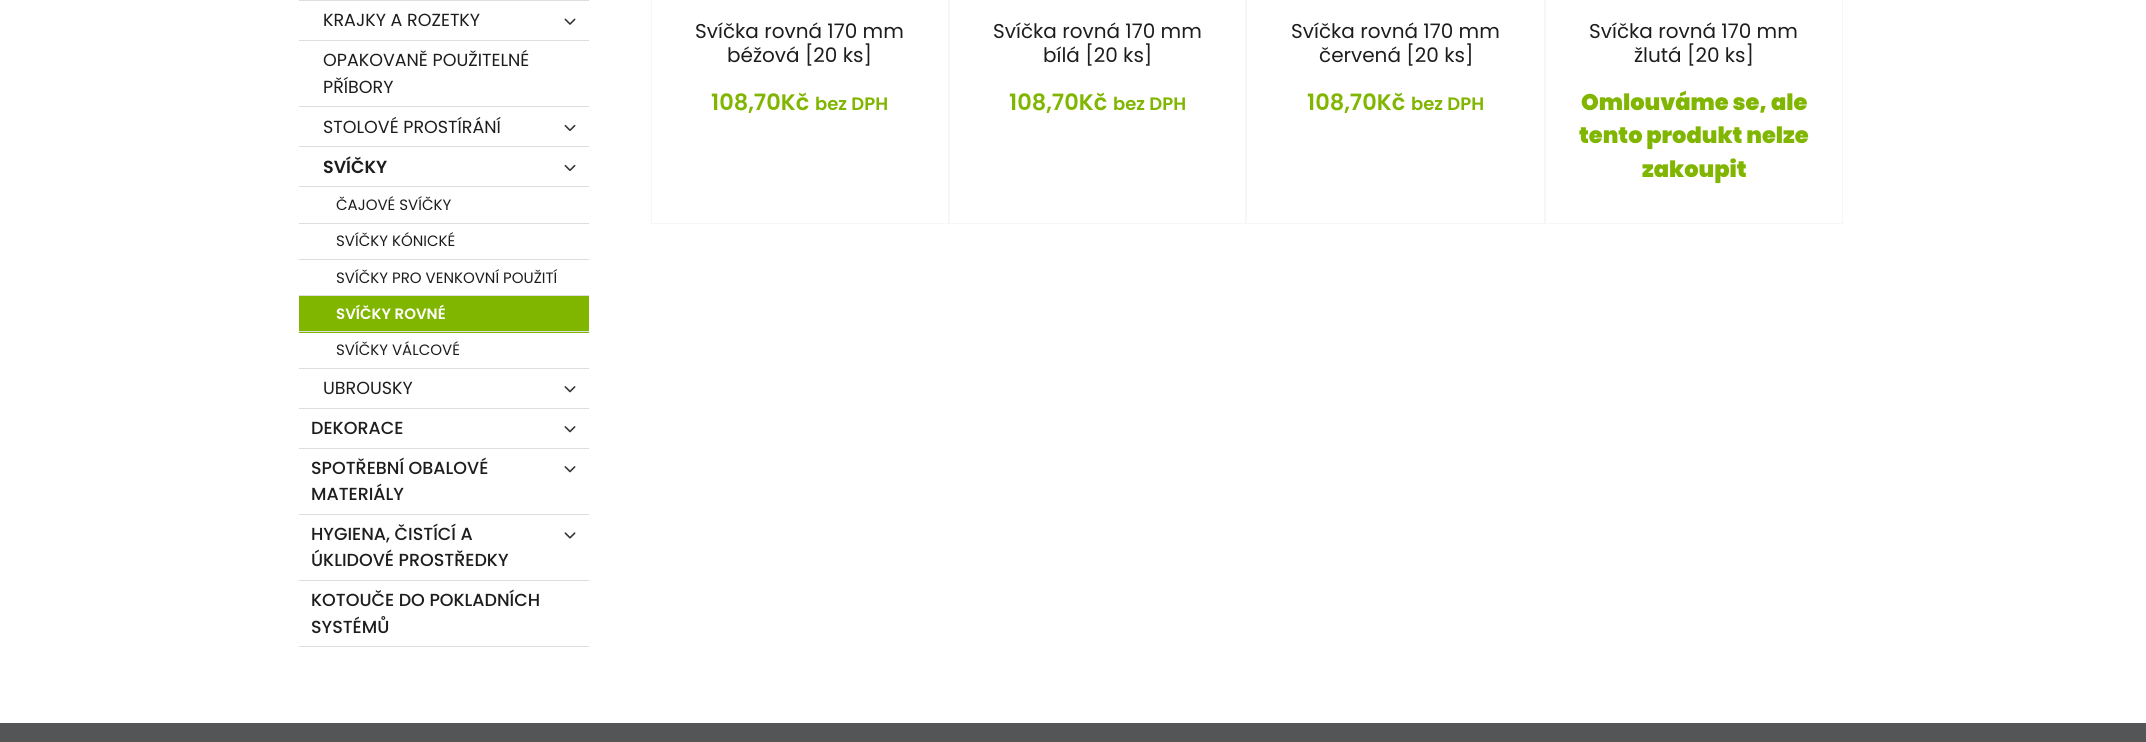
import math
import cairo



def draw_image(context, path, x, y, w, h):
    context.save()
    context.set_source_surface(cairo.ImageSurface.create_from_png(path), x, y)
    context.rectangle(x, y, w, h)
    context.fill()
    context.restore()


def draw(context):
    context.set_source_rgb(1, 1, 1)
    context.paint()
    context.set_source_rgb(222 / 255, 222 / 255, 222 / 255)
    context.rectangle(299, 0, 290, 1)
    context.fill()
    context.rectangle(299, 40, 290, 1)
    context.fill()
    draw_image(context, "images/1.png", 564, 18, 12, 7)
    context.rectangle(299, 106, 290, 1)
    context.fill()
    context.rectangle(299, 146, 290, 1)
    context.fill()
    draw_image(context, "images/2.png", 564, 124, 12, 7)
    context.rectangle(299, 186, 290, 1)
    context.fill()
    draw_image(context, "images/2.png", 564, 164, 12, 7)
    context.rectangle(299, 223, 290, 1)
    context.fill()
    context.rectangle(299, 259, 290, 1)
    context.fill()
    context.rectangle(299, 295, 290, 1)
    context.fill()
    context.set_source_rgb(128 / 255, 181 / 255, 0)
    context.rectangle(299, 296, 290, 37)
    context.fill()
    context.set_source_rgb(222 / 255, 222 / 255, 222 / 255)
    context.rectangle(299, 331, 290, 1)
    context.fill()
    context.rectangle(299, 368, 290, 1)
    context.fill()
    context.rectangle(299, 408, 290, 1)
    context.fill()
    draw_image(context, "images/3.png", 564, 386, 12, 7)
    context.rectangle(299, 448, 290, 1)
    context.fill()
    draw_image(context, "images/3.png", 564, 426, 12, 7)
    context.rectangle(299, 514, 290, 1)
    context.fill()
    draw_image(context, "images/3.png", 564, 466, 12, 7)
    context.rectangle(299, 580, 290, 1)
    context.fill()
    draw_image(context, "images/4.png", 564, 532, 12, 7)
    context.rectangle(299, 646, 290, 1)
    context.fill()
    context.rectangle(651.5, -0.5, 297, 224)
    context.set_source_rgb(246 / 255, 246 / 255, 246 / 255)
    context.set_line_width(1)
    context.stroke()
    context.rectangle(949.5, -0.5, 296, 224)
    context.stroke()
    context.rectangle(1246.5, -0.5, 298, 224)
    context.stroke()
    context.rectangle(1545.5, -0.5, 297, 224)
    context.stroke()
    context.set_source_rgb(84 / 255, 85 / 255, 87 / 255)
    context.rectangle(0, 723, 2146, 19)
    context.fill()
    context.select_font_face("Poppins")
    context.set_font_size(17.5)
    context.set_source_rgb(29 / 255, 29 / 255, 29 / 255)
    context.move_to(323, 26)
    context.show_text("KRAJKY A ROZETKY")
    context.move_to(323, 66)
    context.show_text("OPAKOVANĚ POUŽITELNÉ")
    context.move_to(323, 93)
    context.show_text("PŘÍBORY")
    context.move_to(323, 133)
    context.show_text("STOLOVÉ PROSTÍRÁNÍ")
    context.select_font_face("Poppins SemiBold")
    context.move_to(323, 173)
    context.show_text("SVÍČKY")
    context.select_font_face("Poppins")
    context.set_font_size(15)
    context.move_to(336, 210)
    context.show_text("ČAJOVÉ SVÍČKY")
    context.move_to(336, 246)
    context.show_text("SVÍČKY KÓNICKÉ")
    context.move_to(336, 283)
    context.show_text("SVÍČKY PRO VENKOVNÍ POUŽITÍ")
    context.select_font_face("Poppins SemiBold")
    context.set_source_rgb(1, 1, 1)
    context.move_to(336, 319)
    context.show_text("SVÍČKY ROVNÉ")
    context.select_font_face("Poppins")
    context.set_source_rgb(29 / 255, 29 / 255, 29 / 255)
    context.move_to(336, 355)
    context.show_text("SVÍČKY VÁLCOVÉ")
    context.set_font_size(17.5)
    context.move_to(323, 394)
    context.show_text("UBROUSKY")
    context.select_font_face("Poppins Medium")
    context.move_to(311, 434)
    context.show_text("DEKORACE")
    context.move_to(311, 474)
    context.show_text("SPOTŘEBNÍ OBALOVÉ")
    context.move_to(311, 500)
    context.show_text("MATERIÁLY")
    context.move_to(311, 540)
    context.show_text("HYGIENA, ČISTÍCÍ A")
    context.move_to(311, 566)
    context.show_text("ÚKLIDOVÉ PROSTŘEDKY")
    context.move_to(311, 606)
    context.show_text("KOTOUČE DO POKLADNÍCH")
    context.move_to(311, 633)
    context.show_text("SYSTÉMŮ")
    context.select_font_face("Poppins")
    context.set_font_size(20)
    context.move_to(695, 38)
    context.show_text("Svíčka rovná 170 mm")
    context.move_to(727, 62)
    context.show_text("béžová [20 ks]")
    context.select_font_face("Poppins SemiBold")
    context.set_font_size(22.5)
    context.set_source_rgb(128 / 255, 181 / 255, 0)
    context.move_to(711, 110)
    context.show_text("108,70Kč")
    context.set_font_size(18)
    context.move_to(815, 110)
    context.show_text("bez DPH")
    context.select_font_face("Poppins")
    context.set_font_size(20)
    context.set_source_rgb(29 / 255, 29 / 255, 29 / 255)
    context.move_to(993, 38)
    context.show_text("Svíčka rovná 170 mm")
    context.move_to(1043, 62)
    context.show_text("bílá [20 ks]")
    context.select_font_face("Poppins SemiBold")
    context.set_font_size(22.5)
    context.set_source_rgb(128 / 255, 181 / 255, 0)
    context.move_to(1009, 110)
    context.show_text("108,70Kč")
    context.set_font_size(18)
    context.move_to(1113, 110)
    context.show_text("bez DPH")
    context.select_font_face("Poppins")
    context.set_font_size(20)
    context.set_source_rgb(29 / 255, 29 / 255, 29 / 255)
    context.move_to(1291, 38)
    context.show_text("Svíčka rovná 170 mm")
    context.move_to(1319, 62)
    context.show_text("červená [20 ks]")
    context.select_font_face("Poppins SemiBold")
    context.set_font_size(22.5)
    context.set_source_rgb(128 / 255, 181 / 255, 0)
    context.move_to(1307, 110)
    context.show_text("108,70Kč")
    context.set_font_size(18)
    context.move_to(1411, 110)
    context.show_text("bez DPH")
    context.select_font_face("Poppins")
    context.set_font_size(20)
    context.set_source_rgb(29 / 255, 29 / 255, 29 / 255)
    context.move_to(1589, 38)
    context.show_text("Svíčka rovná 170 mm")
    context.move_to(1634, 62)
    context.show_text("žlutá [20 ks]")
    context.select_font_face("Poppins Black")
    context.set_font_size(22.5)
    context.set_source_rgb(128 / 255, 181 / 255, 0)
    context.move_to(1581, 110)
    context.show_text("Omlouváme se, ale")
    context.move_to(1579, 143)
    context.show_text("tento produkt nelze")
    context.move_to(1642, 177)
    context.show_text("zakoupit")


surface = cairo.ImageSurface(cairo.Format.RGB24, 2146, 742)
context = cairo.Context(surface)
options = cairo.FontOptions()
options.set_hint_metrics(cairo.HintMetrics.OFF)
options.set_hint_style(cairo.HintStyle.NONE)
context.set_font_options(options)
context.set_miter_limit(4)
draw(context)
surface.write_to_png("out.png")
